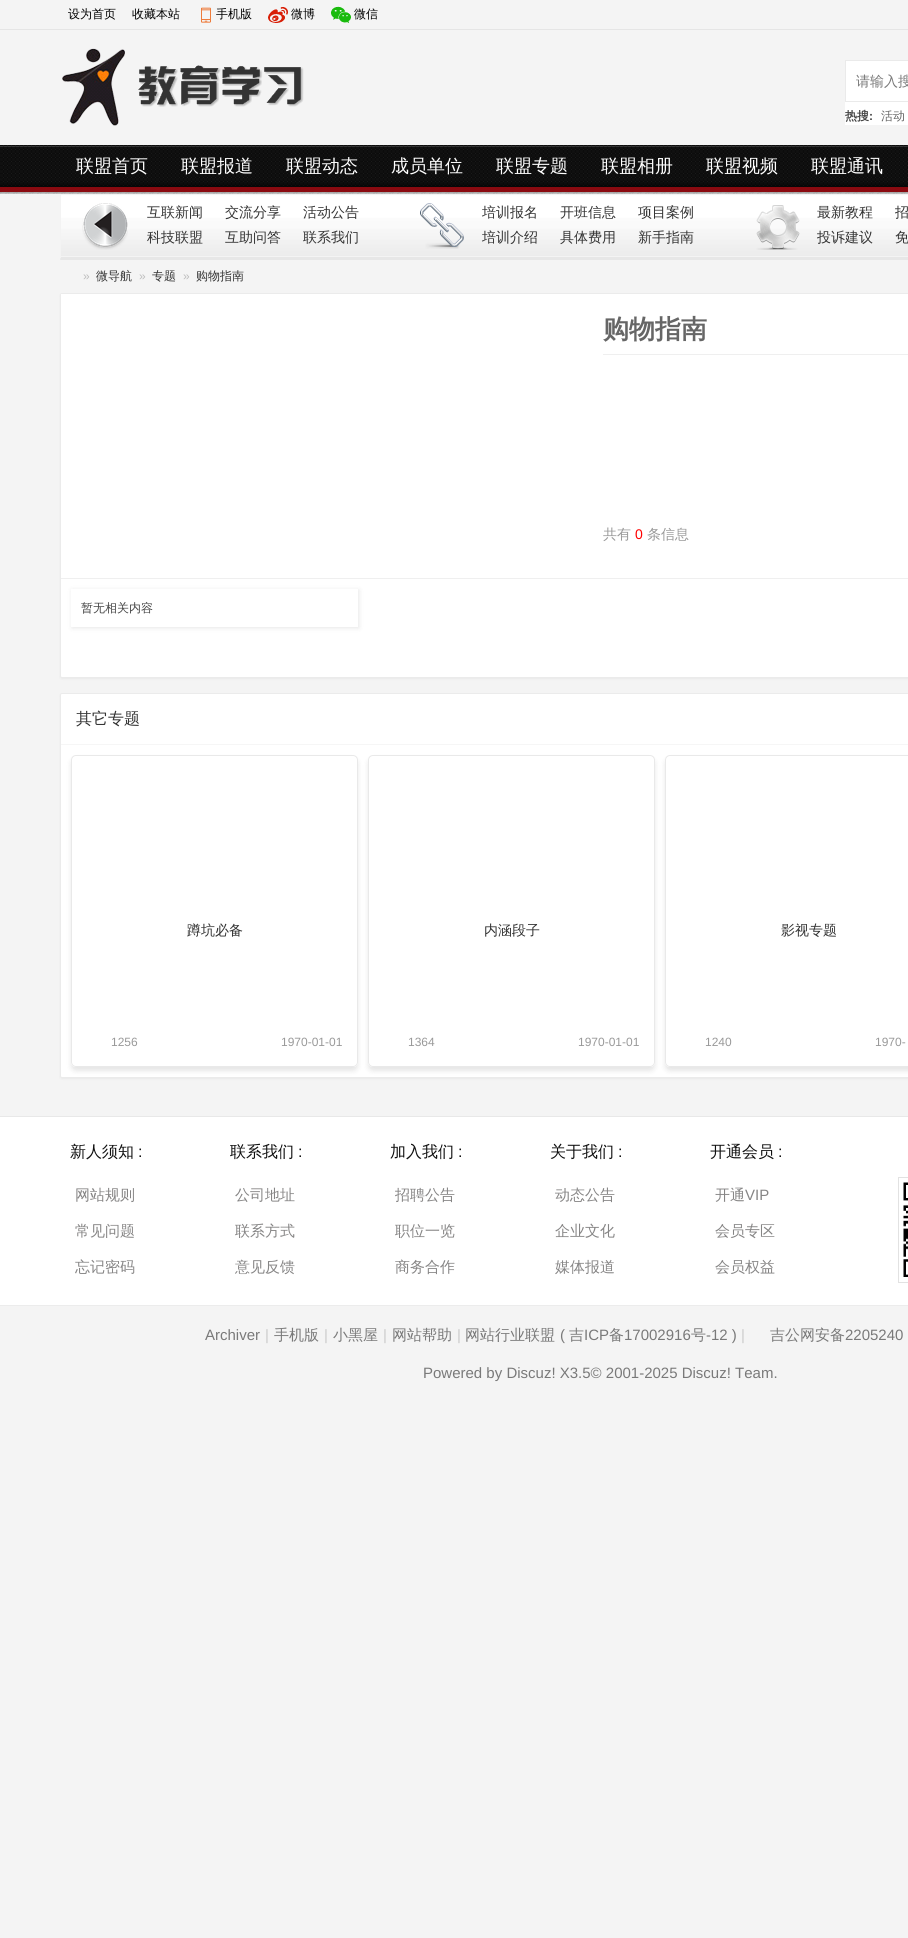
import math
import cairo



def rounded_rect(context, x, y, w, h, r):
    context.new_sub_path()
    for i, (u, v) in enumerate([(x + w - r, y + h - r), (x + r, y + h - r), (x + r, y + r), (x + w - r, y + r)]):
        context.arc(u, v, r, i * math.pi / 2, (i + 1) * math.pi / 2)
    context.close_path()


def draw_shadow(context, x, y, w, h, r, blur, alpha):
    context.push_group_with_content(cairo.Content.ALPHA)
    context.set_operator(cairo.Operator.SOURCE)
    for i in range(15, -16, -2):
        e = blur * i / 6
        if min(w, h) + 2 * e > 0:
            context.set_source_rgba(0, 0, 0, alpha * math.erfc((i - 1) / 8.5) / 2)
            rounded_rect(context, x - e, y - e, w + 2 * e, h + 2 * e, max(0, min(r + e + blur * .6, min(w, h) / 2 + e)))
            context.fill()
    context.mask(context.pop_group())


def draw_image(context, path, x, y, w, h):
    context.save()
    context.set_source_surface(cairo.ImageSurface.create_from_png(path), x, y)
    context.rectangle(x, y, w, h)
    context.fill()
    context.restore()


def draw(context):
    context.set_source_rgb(244 / 255, 244 / 255, 244 / 255)
    context.paint()
    context.set_source_rgb(229 / 255, 229 / 255, 229 / 255)
    context.rectangle(0, 29, 908, 1)
    context.fill()
    draw_image(context, "images/1.png", 201, 7, 10, 16)
    draw_image(context, "images/2.png", 268, 7, 20, 16)
    draw_image(context, "images/3.png", 331, 6, 20, 17)
    draw_image(context, "images/4.png", 62, 48, 242, 78)
    context.set_source_rgb(1, 1, 1)
    context.rectangle(845, 61, 63, 64)
    context.fill()
    context.rectangle(845.5, 60.5, 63, 41)
    context.set_source_rgb(234 / 255, 234 / 255, 234 / 255)
    context.set_line_width(1)
    context.stroke()
    draw_image(context, "images/5.png", 0, 145, 908, 49)
    draw_image(context, "images/6.png", 60, 195, 848, 65)
    context.set_source_rgb(231 / 255, 231 / 255, 231 / 255)
    context.new_path()
    context.move_to(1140, 260)
    context.line_to(60, 260)
    context.line_to(61, 257)
    context.line_to(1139, 257)
    context.close_path()
    context.fill()
    context.set_source_rgb(243 / 255, 243 / 255, 243 / 255)
    context.new_path()
    context.move_to(60, 260)
    context.line_to(60, 194)
    context.line_to(61, 195)
    context.line_to(61, 257)
    context.close_path()
    context.fill()
    draw_image(context, "images/7.png", 82, 203, 46, 47)
    draw_image(context, "images/8.png", 420, 203, 44, 46)
    draw_image(context, "images/9.png", 756, 205, 44, 45)
    context.set_source_rgb(0, 0, 0)
    draw_shadow(context, 60, 294, 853, 385, 2, 1, 0.05)
    context.set_source_rgb(1, 1, 1)
    rounded_rect(context, 60.5, 293.5, 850, 384, 1.5)
    context.fill_preserve()
    context.set_source_rgb(235 / 255, 235 / 255, 235 / 255)
    context.stroke()
    context.set_source_rgb(1, 1, 1)
    context.rectangle(61, 294, 1, 1)
    context.fill()
    context.set_source_rgb(239 / 255, 239 / 255, 239 / 255)
    context.rectangle(61, 578, 847, 1)
    context.fill()
    context.rectangle(603, 354, 305, 1)
    context.fill()
    context.save()
    context.set_fill_rule(cairo.FillRule.EVEN_ODD)
    context.new_path()
    context.move_to(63, 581)
    context.line_to(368, 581)
    context.line_to(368, 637)
    context.line_to(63, 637)
    context.close_path()
    context.move_to(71, 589)
    context.line_to(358, 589)
    context.line_to(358, 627)
    context.line_to(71, 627)
    context.close_path()
    context.clip()
    context.set_source_rgb(0, 0, 0)
    draw_shadow(context, 72, 590, 287, 38, 0, 2.5, 0.1)
    context.restore()
    context.set_source_rgb(0, 0, 0)
    draw_shadow(context, 60, 694, 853, 385, 2, 1, 0.05)
    context.set_source_rgb(1, 1, 1)
    rounded_rect(context, 60.5, 693.5, 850, 384, 1.5)
    context.fill_preserve()
    context.set_source_rgb(235 / 255, 235 / 255, 235 / 255)
    context.stroke()
    context.set_source_rgb(246 / 255, 246 / 255, 246 / 255)
    context.rectangle(61, 744, 847, 1)
    context.fill()
    context.save()
    context.set_fill_rule(cairo.FillRule.EVEN_ODD)
    context.new_path()
    context.move_to(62, 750)
    context.line_to(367, 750)
    context.line_to(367, 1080)
    context.line_to(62, 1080)
    context.close_path()
    context.move_to(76, 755)
    context.line_to(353, 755)
    context.curve_to(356, 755, 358, 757, 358, 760)
    context.line_to(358, 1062)
    context.curve_to(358, 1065, 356, 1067, 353, 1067)
    context.line_to(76, 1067)
    context.curve_to(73, 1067, 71, 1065, 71, 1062)
    context.line_to(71, 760)
    context.curve_to(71, 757, 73, 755, 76, 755)
    context.close_path()
    context.clip()
    context.set_source_rgb(0, 0, 0)
    draw_shadow(context, 71, 759, 287, 312, 5, 2.5, 0.1)
    context.restore()
    rounded_rect(context, 71.5, 755.5, 286, 311, 4.5)
    context.set_source_rgb(233 / 255, 233 / 255, 233 / 255)
    context.stroke()
    context.save()
    context.set_fill_rule(cairo.FillRule.EVEN_ODD)
    context.new_path()
    context.move_to(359, 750)
    context.line_to(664, 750)
    context.line_to(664, 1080)
    context.line_to(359, 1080)
    context.close_path()
    context.move_to(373, 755)
    context.line_to(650, 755)
    context.curve_to(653, 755, 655, 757, 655, 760)
    context.line_to(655, 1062)
    context.curve_to(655, 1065, 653, 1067, 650, 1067)
    context.line_to(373, 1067)
    context.curve_to(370, 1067, 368, 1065, 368, 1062)
    context.line_to(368, 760)
    context.curve_to(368, 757, 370, 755, 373, 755)
    context.close_path()
    context.clip()
    context.set_source_rgb(0, 0, 0)
    draw_shadow(context, 368, 759, 287, 312, 5, 2.5, 0.1)
    context.restore()
    rounded_rect(context, 368.5, 755.5, 286, 311, 4.5)
    context.stroke()
    context.save()
    context.set_fill_rule(cairo.FillRule.EVEN_ODD)
    context.new_path()
    context.move_to(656, 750)
    context.line_to(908, 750)
    context.line_to(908, 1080)
    context.line_to(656, 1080)
    context.close_path()
    context.move_to(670, 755)
    context.line_to(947, 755)
    context.curve_to(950, 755, 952, 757, 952, 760)
    context.line_to(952, 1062)
    context.curve_to(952, 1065, 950, 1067, 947, 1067)
    context.line_to(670, 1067)
    context.curve_to(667, 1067, 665, 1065, 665, 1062)
    context.line_to(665, 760)
    context.curve_to(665, 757, 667, 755, 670, 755)
    context.close_path()
    context.clip()
    context.set_source_rgb(0, 0, 0)
    draw_shadow(context, 665, 759, 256, 312, 5, 2.5, 0.1)
    context.restore()
    rounded_rect(context, 665.5, 755.5, 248, 311, 4.5)
    context.stroke()
    context.set_source_rgb(1, 1, 1)
    context.rectangle(0, 1117, 908, 188)
    context.fill()
    context.set_source_rgb(232 / 255, 232 / 255, 232 / 255)
    context.rectangle(0, 1116, 908, 1)
    context.fill()
    context.rectangle(898.5, 1177.5, 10, 105)
    context.set_source_rgb(226 / 255, 226 / 255, 226 / 255)
    context.stroke()
    draw_image(context, "images/10.png", 903, 1182, 5, 95)
    context.set_source_rgb(236 / 255, 236 / 255, 236 / 255)
    context.rectangle(0, 1305, 908, 1)
    context.fill()
    context.select_font_face("WenQuanYi Zen Hei Medium")
    context.set_font_size(12)
    context.set_source_rgb(0, 0, 0)
    context.move_to(68, 18)
    context.show_text("设为首页")
    context.move_to(132, 18)
    context.show_text("收藏本站")
    context.move_to(216, 18)
    context.show_text("手机版")
    context.move_to(291, 18)
    context.show_text("微博")
    context.move_to(354, 18)
    context.show_text("微信")
    context.set_font_size(14)
    context.set_source_rgb(121 / 255, 121 / 255, 121 / 255)
    context.move_to(856, 86)
    context.show_text("请输入搜")
    context.select_font_face("WenQuanYi Zen Hei", cairo.FontSlant.NORMAL, cairo.FontWeight.BOLD)
    context.set_font_size(12)
    context.set_source_rgb(68 / 255, 68 / 255, 68 / 255)
    context.move_to(845, 120)
    context.show_text("热搜")
    context.select_font_face("Liberation Sans", cairo.FontSlant.NORMAL, cairo.FontWeight.BOLD)
    context.move_to(869, 120)
    context.show_text(":")
    context.select_font_face("WenQuanYi Zen Hei Medium")
    context.set_source_rgb(102 / 255, 102 / 255, 102 / 255)
    context.move_to(881, 120)
    context.show_text("活动")
    context.set_font_size(18)
    context.set_source_rgb(1, 1, 1)
    context.move_to(76, 172)
    context.show_text("联盟首页")
    context.move_to(181, 172)
    context.show_text("联盟报道")
    context.move_to(286, 172)
    context.show_text("联盟动态")
    context.move_to(391, 172)
    context.show_text("成员单位")
    context.move_to(496, 172)
    context.show_text("联盟专题")
    context.move_to(601, 172)
    context.show_text("联盟相册")
    context.move_to(706, 172)
    context.show_text("联盟视频")
    context.move_to(811, 172)
    context.show_text("联盟通讯")
    context.set_font_size(14)
    context.set_source_rgb(51 / 255, 51 / 255, 51 / 255)
    context.move_to(147, 217)
    context.show_text("互联新闻")
    context.move_to(225, 217)
    context.show_text("交流分享")
    context.move_to(303, 217)
    context.show_text("活动公告")
    context.move_to(147, 242)
    context.show_text("科技联盟")
    context.move_to(225, 242)
    context.show_text("互助问答")
    context.move_to(303, 242)
    context.show_text("联系我们")
    context.move_to(482, 217)
    context.show_text("培训报名")
    context.move_to(560, 217)
    context.show_text("开班信息")
    context.move_to(638, 217)
    context.show_text("项目案例")
    context.move_to(482, 242)
    context.show_text("培训介绍")
    context.move_to(560, 242)
    context.show_text("具体费用")
    context.move_to(638, 242)
    context.show_text("新手指南")
    context.move_to(817, 217)
    context.show_text("最新教程")
    context.move_to(895, 217)
    context.show_text("招")
    context.move_to(817, 242)
    context.show_text("投诉建议")
    context.move_to(895, 242)
    context.show_text("免")
    context.select_font_face("Liberation Sans")
    context.set_font_size(12)
    context.set_source_rgb(189 / 255, 189 / 255, 189 / 255)
    context.move_to(83, 280)
    context.show_text("»")
    context.select_font_face("WenQuanYi Zen Hei Medium")
    context.set_source_rgb(51 / 255, 51 / 255, 51 / 255)
    context.move_to(96, 280)
    context.show_text("微导航")
    context.select_font_face("Liberation Sans")
    context.set_source_rgb(189 / 255, 189 / 255, 189 / 255)
    context.move_to(139, 280)
    context.show_text("»")
    context.select_font_face("WenQuanYi Zen Hei Medium")
    context.set_source_rgb(51 / 255, 51 / 255, 51 / 255)
    context.move_to(152, 280)
    context.show_text("专题")
    context.select_font_face("Liberation Sans")
    context.set_source_rgb(189 / 255, 189 / 255, 189 / 255)
    context.move_to(183, 280)
    context.show_text("»")
    context.select_font_face("WenQuanYi Zen Hei Medium")
    context.set_source_rgb(51 / 255, 51 / 255, 51 / 255)
    context.move_to(196, 280)
    context.show_text("购物指南")
    context.select_font_face("WenQuanYi Zen Hei", cairo.FontSlant.NORMAL, cairo.FontWeight.BOLD)
    context.set_font_size(26)
    context.set_source_rgb(102 / 255, 102 / 255, 102 / 255)
    context.move_to(603, 338)
    context.show_text("购物指南")
    context.select_font_face("WenQuanYi Zen Hei Medium")
    context.set_font_size(14)
    context.set_source_rgb(153 / 255, 153 / 255, 153 / 255)
    context.move_to(603, 539)
    context.show_text("共有")
    context.select_font_face("Liberation Sans")
    context.set_source_rgb(1, 0, 0)
    context.move_to(635, 539)
    context.show_text("0")
    context.select_font_face("WenQuanYi Zen Hei Medium")
    context.set_source_rgb(153 / 255, 153 / 255, 153 / 255)
    context.move_to(647, 539)
    context.show_text("条信息")
    context.set_font_size(12)
    context.set_source_rgb(68 / 255, 68 / 255, 68 / 255)
    context.move_to(81, 612)
    context.show_text("暂无相关内容")
    context.set_font_size(16)
    context.set_source_rgb(51 / 255, 51 / 255, 51 / 255)
    context.move_to(76, 724)
    context.show_text("其它专题")
    context.set_font_size(14)
    context.move_to(187, 935)
    context.show_text("蹲坑必备")
    context.select_font_face("Liberation Sans")
    context.set_font_size(12)
    context.set_source_rgb(153 / 255, 153 / 255, 153 / 255)
    context.move_to(111, 1046)
    context.show_text("1256")
    context.move_to(281, 1046)
    context.show_text("1970-01-01")
    context.select_font_face("WenQuanYi Zen Hei Medium")
    context.set_font_size(14)
    context.set_source_rgb(51 / 255, 51 / 255, 51 / 255)
    context.move_to(484, 935)
    context.show_text("内涵段子")
    context.select_font_face("Liberation Sans")
    context.set_font_size(12)
    context.set_source_rgb(153 / 255, 153 / 255, 153 / 255)
    context.move_to(408, 1046)
    context.show_text("1364")
    context.move_to(578, 1046)
    context.show_text("1970-01-01")
    context.select_font_face("WenQuanYi Zen Hei Medium")
    context.set_font_size(14)
    context.set_source_rgb(51 / 255, 51 / 255, 51 / 255)
    context.move_to(781, 935)
    context.show_text("影视专题")
    context.select_font_face("Liberation Sans")
    context.set_font_size(12)
    context.set_source_rgb(153 / 255, 153 / 255, 153 / 255)
    context.move_to(705, 1046)
    context.show_text("1240")
    context.move_to(875, 1046)
    context.show_text("1970-")
    context.select_font_face("WenQuanYi Zen Hei Medium")
    context.set_font_size(16)
    context.set_source_rgb(16 / 255, 16 / 255, 16 / 255)
    context.move_to(70, 1157)
    context.show_text("新人须知")
    context.select_font_face("Liberation Sans")
    context.move_to(138, 1157)
    context.show_text(":")
    context.select_font_face("WenQuanYi Zen Hei Medium")
    context.set_font_size(15)
    context.set_source_rgb(134 / 255, 133 / 255, 133 / 255)
    context.move_to(75, 1200)
    context.show_text("网站规则")
    context.move_to(75, 1236)
    context.show_text("常见问题")
    context.move_to(75, 1272)
    context.show_text("忘记密码")
    context.set_font_size(16)
    context.set_source_rgb(16 / 255, 16 / 255, 16 / 255)
    context.move_to(230, 1157)
    context.show_text("联系我们")
    context.select_font_face("Liberation Sans")
    context.move_to(298, 1157)
    context.show_text(":")
    context.select_font_face("WenQuanYi Zen Hei Medium")
    context.set_font_size(15)
    context.set_source_rgb(134 / 255, 133 / 255, 133 / 255)
    context.move_to(235, 1200)
    context.show_text("公司地址")
    context.move_to(235, 1236)
    context.show_text("联系方式")
    context.move_to(235, 1272)
    context.show_text("意见反馈")
    context.set_font_size(16)
    context.set_source_rgb(16 / 255, 16 / 255, 16 / 255)
    context.move_to(390, 1157)
    context.show_text("加入我们")
    context.select_font_face("Liberation Sans")
    context.move_to(458, 1157)
    context.show_text(":")
    context.select_font_face("WenQuanYi Zen Hei Medium")
    context.set_font_size(15)
    context.set_source_rgb(134 / 255, 133 / 255, 133 / 255)
    context.move_to(395, 1200)
    context.show_text("招聘公告")
    context.move_to(395, 1236)
    context.show_text("职位一览")
    context.move_to(395, 1272)
    context.show_text("商务合作")
    context.set_font_size(16)
    context.set_source_rgb(16 / 255, 16 / 255, 16 / 255)
    context.move_to(550, 1157)
    context.show_text("关于我们")
    context.select_font_face("Liberation Sans")
    context.move_to(618, 1157)
    context.show_text(":")
    context.select_font_face("WenQuanYi Zen Hei Medium")
    context.set_font_size(15)
    context.set_source_rgb(134 / 255, 133 / 255, 133 / 255)
    context.move_to(555, 1200)
    context.show_text("动态公告")
    context.move_to(555, 1236)
    context.show_text("企业文化")
    context.move_to(555, 1272)
    context.show_text("媒体报道")
    context.set_font_size(16)
    context.set_source_rgb(16 / 255, 16 / 255, 16 / 255)
    context.move_to(710, 1157)
    context.show_text("开通会员")
    context.select_font_face("Liberation Sans")
    context.move_to(778, 1157)
    context.show_text(":")
    context.select_font_face("WenQuanYi Zen Hei Medium")
    context.set_font_size(15)
    context.set_source_rgb(134 / 255, 133 / 255, 133 / 255)
    context.move_to(715, 1200)
    context.show_text("开通")
    context.select_font_face("Liberation Sans")
    context.move_to(745, 1200)
    context.show_text("VIP")
    context.select_font_face("WenQuanYi Zen Hei Medium")
    context.move_to(715, 1236)
    context.show_text("会员专区")
    context.move_to(715, 1272)
    context.show_text("会员权益")
    context.select_font_face("Liberation Sans")
    context.set_source_rgb(121 / 255, 121 / 255, 121 / 255)
    context.move_to(205, 1340)
    context.show_text("Archiver")
    context.set_source_rgb(204 / 255, 204 / 255, 204 / 255)
    context.move_to(265, 1340)
    context.show_text("|")
    context.select_font_face("WenQuanYi Zen Hei Medium")
    context.set_source_rgb(121 / 255, 121 / 255, 121 / 255)
    context.move_to(274, 1340)
    context.show_text("手机版")
    context.select_font_face("Liberation Sans")
    context.set_source_rgb(204 / 255, 204 / 255, 204 / 255)
    context.move_to(324, 1340)
    context.show_text("|")
    context.select_font_face("WenQuanYi Zen Hei Medium")
    context.set_source_rgb(121 / 255, 121 / 255, 121 / 255)
    context.move_to(333, 1340)
    context.show_text("小黑屋")
    context.select_font_face("Liberation Sans")
    context.set_source_rgb(204 / 255, 204 / 255, 204 / 255)
    context.move_to(383, 1340)
    context.show_text("|")
    context.select_font_face("WenQuanYi Zen Hei Medium")
    context.set_source_rgb(121 / 255, 121 / 255, 121 / 255)
    context.move_to(392, 1340)
    context.show_text("网站帮助")
    context.select_font_face("Liberation Sans")
    context.set_source_rgb(204 / 255, 204 / 255, 204 / 255)
    context.move_to(457, 1340)
    context.show_text("|")
    context.select_font_face("WenQuanYi Zen Hei Medium")
    context.set_source_rgb(121 / 255, 121 / 255, 121 / 255)
    context.move_to(465, 1340)
    context.show_text("网站行业联盟")
    context.select_font_face("Liberation Sans")
    context.move_to(560, 1340)
    context.show_text("(")
    context.select_font_face("WenQuanYi Zen Hei Medium")
    context.move_to(569, 1340)
    context.show_text("吉")
    context.select_font_face("Liberation Sans")
    context.move_to(584, 1340)
    context.show_text("ICP")
    context.select_font_face("WenQuanYi Zen Hei Medium")
    context.move_to(609, 1340)
    context.show_text("备")
    context.select_font_face("Liberation Sans")
    context.move_to(624, 1340)
    context.show_text("17002916")
    context.select_font_face("WenQuanYi Zen Hei Medium")
    context.move_to(691, 1340)
    context.show_text("号")
    context.select_font_face("Liberation Sans")
    context.move_to(706, 1340)
    context.show_text("-12 )")
    context.set_source_rgb(204 / 255, 204 / 255, 204 / 255)
    context.move_to(741, 1340)
    context.show_text("|")
    context.select_font_face("WenQuanYi Zen Hei Medium")
    context.set_source_rgb(121 / 255, 121 / 255, 121 / 255)
    context.move_to(770, 1340)
    context.show_text("吉公网安备")
    context.select_font_face("Liberation Sans")
    context.move_to(845, 1340)
    context.show_text("2205240")
    context.move_to(423, 1378)
    context.show_text("Powered by Discuz! X3.5© 2001-2025 Discuz! Team.")


surface = cairo.ImageSurface(cairo.Format.RGB24, 908, 1938)
context = cairo.Context(surface)
options = cairo.FontOptions()
options.set_hint_metrics(cairo.HintMetrics.OFF)
options.set_hint_style(cairo.HintStyle.NONE)
context.set_font_options(options)
context.set_miter_limit(4)
draw(context)
surface.write_to_png("out.png")
